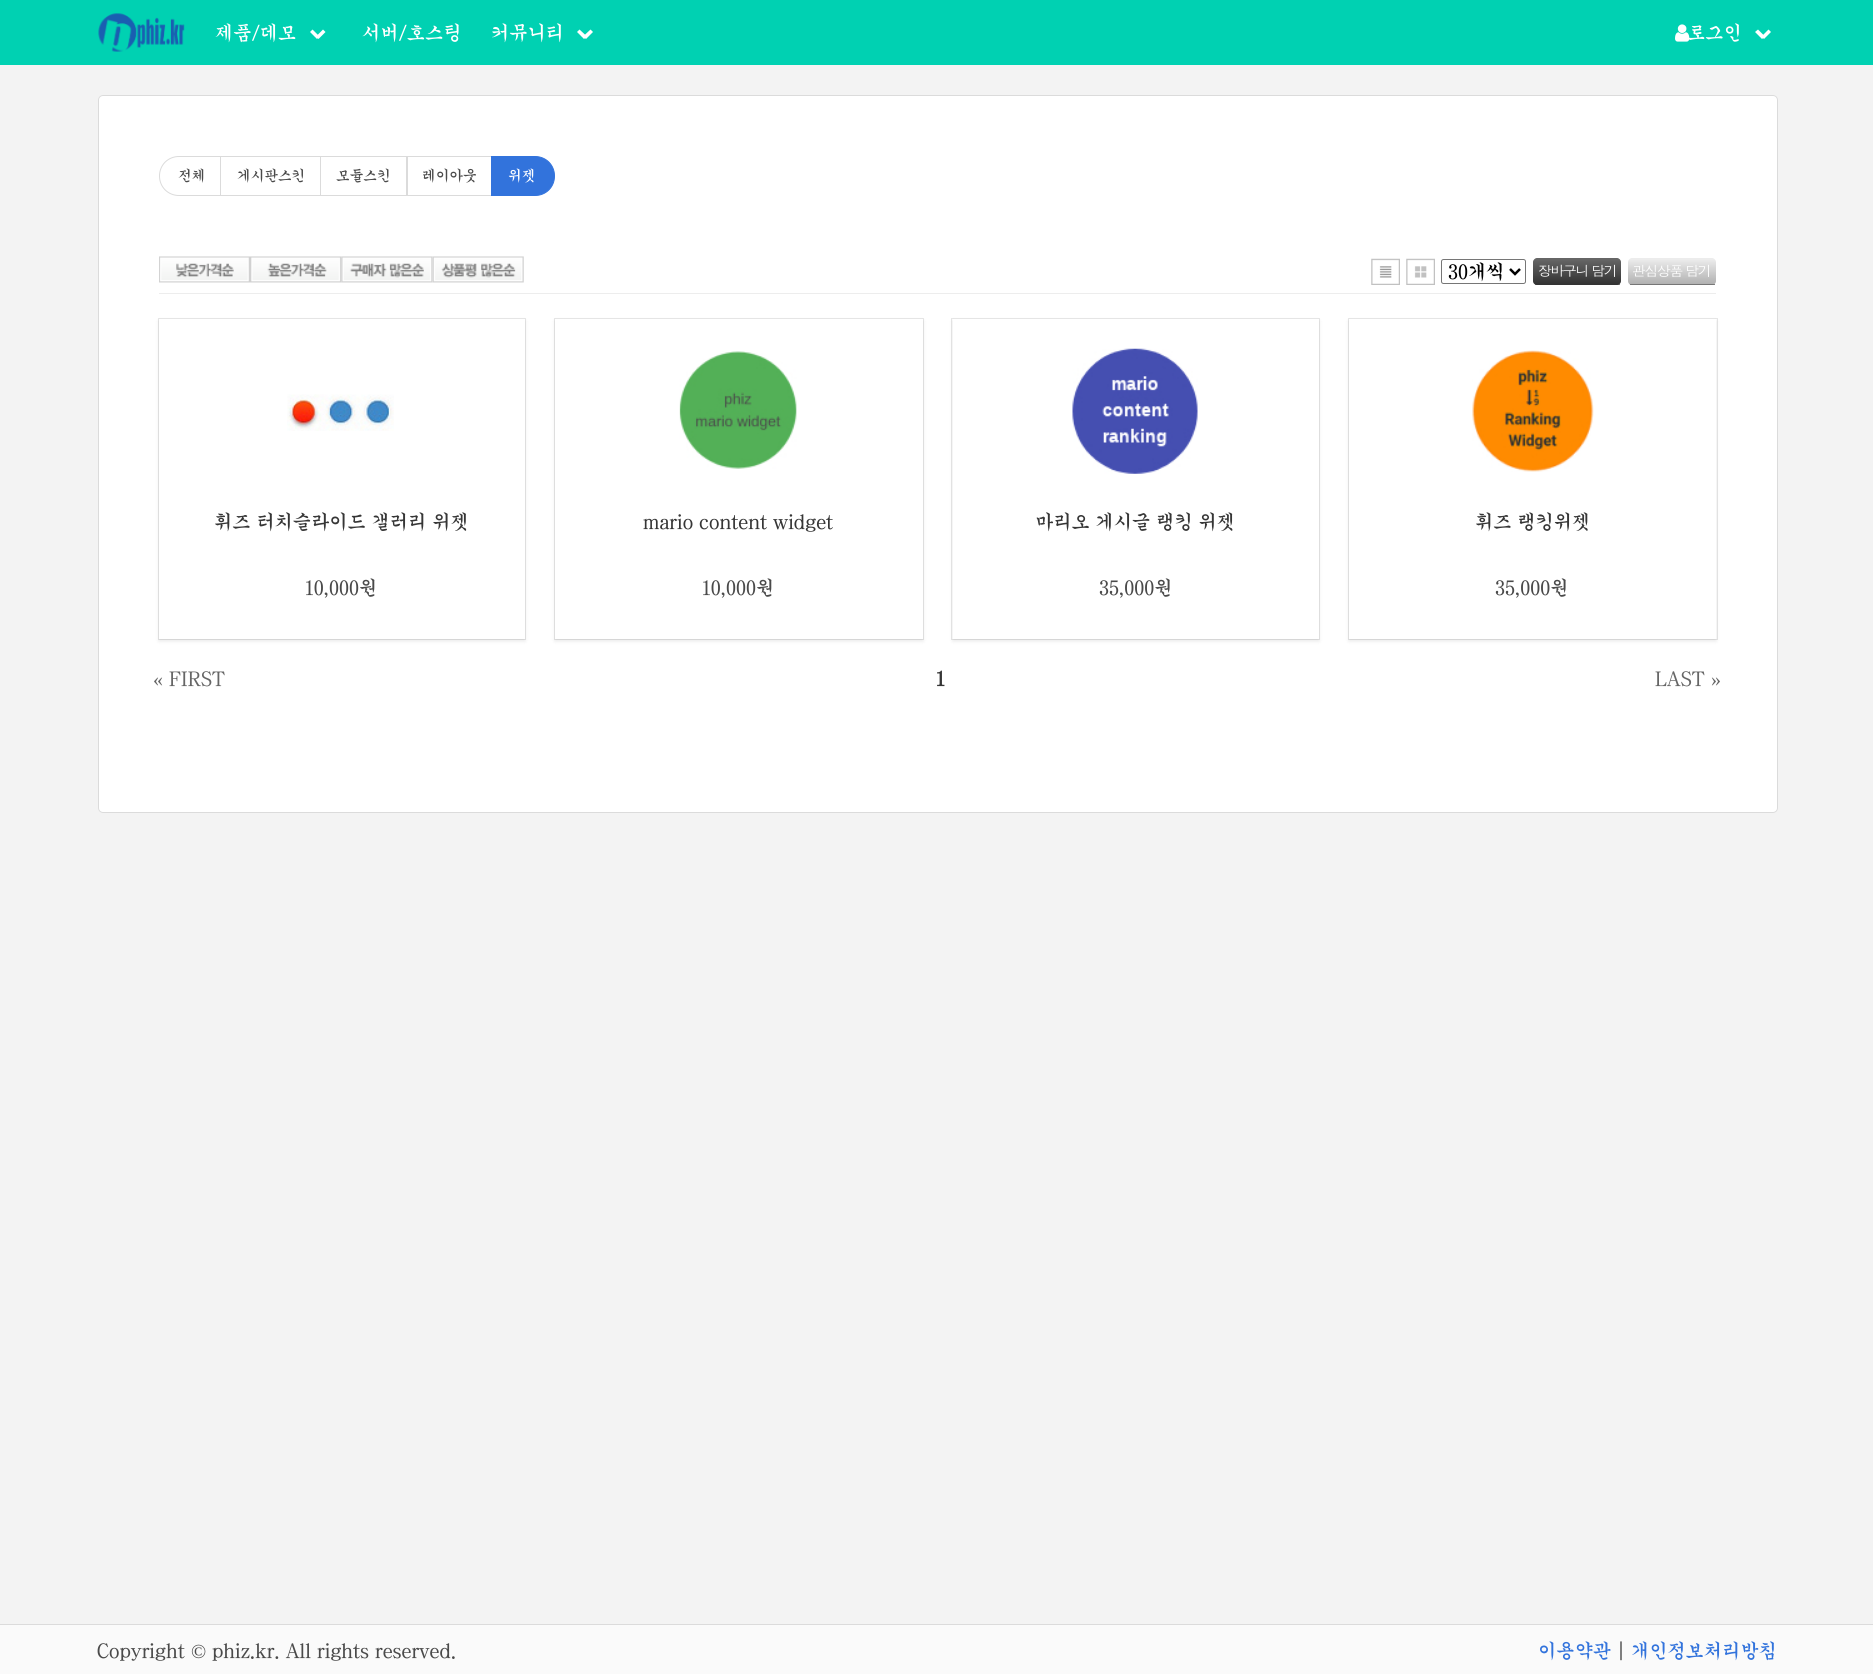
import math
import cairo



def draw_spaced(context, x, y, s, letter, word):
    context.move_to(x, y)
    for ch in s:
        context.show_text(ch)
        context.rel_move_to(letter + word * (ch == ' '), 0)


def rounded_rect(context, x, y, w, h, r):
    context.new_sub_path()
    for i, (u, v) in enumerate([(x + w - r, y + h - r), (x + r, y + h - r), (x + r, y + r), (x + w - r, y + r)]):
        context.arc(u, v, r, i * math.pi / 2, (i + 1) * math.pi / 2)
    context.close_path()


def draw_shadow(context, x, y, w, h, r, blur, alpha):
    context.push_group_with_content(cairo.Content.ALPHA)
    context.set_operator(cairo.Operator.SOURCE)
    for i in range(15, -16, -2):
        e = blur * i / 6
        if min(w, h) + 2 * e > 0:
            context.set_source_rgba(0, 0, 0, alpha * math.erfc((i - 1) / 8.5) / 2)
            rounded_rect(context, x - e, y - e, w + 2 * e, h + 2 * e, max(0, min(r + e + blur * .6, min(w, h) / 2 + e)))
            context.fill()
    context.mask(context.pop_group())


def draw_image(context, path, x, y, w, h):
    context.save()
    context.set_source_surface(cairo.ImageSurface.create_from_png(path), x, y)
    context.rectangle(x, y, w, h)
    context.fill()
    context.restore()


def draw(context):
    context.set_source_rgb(243 / 255, 243 / 255, 243 / 255)
    context.paint()
    context.set_source_rgb(0, 209 / 255, 178 / 255)
    context.rectangle(0, 0, 1873, 65)
    context.fill()
    draw_image(context, "images/1.png", 98, 13, 87, 39)
    context.set_source_rgb(1, 1, 1)
    context.new_path()
    context.move_to(316, 36.5)
    context.line_to(323, 29.5)
    context.line_to(325.5, 32)
    context.line_to(318.5, 39)
    context.close_path()
    context.fill()
    context.new_path()
    context.move_to(310, 32)
    context.line_to(312.5, 29.5)
    context.line_to(319.5, 36.5)
    context.line_to(317, 39)
    context.close_path()
    context.fill()
    context.new_path()
    context.move_to(583, 36.5)
    context.line_to(590.5, 29.5)
    context.line_to(593, 32)
    context.line_to(586, 39)
    context.close_path()
    context.fill()
    context.new_path()
    context.move_to(577, 32)
    context.line_to(579.5, 29.5)
    context.line_to(587, 36.5)
    context.line_to(584, 39)
    context.close_path()
    context.fill()
    draw_image(context, "images/2.png", 1675, 24, 15, 18)
    context.new_path()
    context.move_to(1761.5, 36.5)
    context.line_to(1768.5, 29.5)
    context.line_to(1771, 32)
    context.line_to(1764, 39)
    context.close_path()
    context.fill()
    context.new_path()
    context.move_to(1755, 32)
    context.line_to(1758, 29.5)
    context.line_to(1765, 36.5)
    context.line_to(1762, 39)
    context.close_path()
    context.fill()
    rounded_rect(context, 98, 95, 1680, 718, 5)
    context.fill()
    context.set_source_rgb(128 / 255, 128 / 255, 128 / 255)
    context.rectangle(1630, 284, 85, 1)
    context.fill()
    context.rectangle(1535, 284, 85, 1)
    context.fill()
    rounded_rect(context, 98.5, 95.5, 1679, 717, 4.5)
    context.set_source_rgb(219 / 255, 219 / 255, 219 / 255)
    context.set_line_width(1)
    context.stroke()
    context.new_path()
    context.move_to(179, 156.5)
    context.line_to(220.5, 156.5)
    context.line_to(220.5, 195.5)
    context.line_to(179, 195.5)
    context.curve_to(168, 195.5, 159.5, 187, 159.5, 176)
    context.curve_to(159.5, 165, 168, 156.5, 179, 156.5)
    context.close_path()
    context.stroke()
    context.rectangle(220.5, 156.5, 100, 39)
    context.stroke()
    context.rectangle(320.5, 156.5, 87, 39)
    context.stroke()
    context.rectangle(406.5, 156.5, 86, 39)
    context.stroke()
    context.set_source_rgb(50 / 255, 115 / 255, 220 / 255)
    context.new_path()
    context.move_to(491.5, 156.5)
    context.line_to(535, 156.5)
    context.curve_to(546, 156.5, 554.5, 165, 554.5, 176)
    context.curve_to(554.5, 187, 546, 195.5, 535, 195.5)
    context.line_to(491.5, 195.5)
    context.close_path()
    context.fill_preserve()
    context.stroke()
    context.set_source_rgb(237 / 255, 237 / 255, 237 / 255)
    context.rectangle(159, 293, 1557, 1)
    context.fill()
    draw_image(context, "images/3.png", 159, 256, 91, 27)
    draw_image(context, "images/4.png", 250, 256, 92, 27)
    draw_image(context, "images/5.png", 341, 256, 92, 27)
    draw_image(context, "images/6.png", 432, 256, 92, 27)
    draw_image(context, "images/7.png", 1371, 258, 29, 27)
    draw_image(context, "images/8.png", 1406, 258, 29, 27)
    rounded_rect(context, 1441.5, 259.5, 84, 24, 2)
    context.set_source_rgb(118 / 255, 118 / 255, 118 / 255)
    context.stroke()
    context.new_path()
    context.move_to(1510, 269)
    context.line_to(1515, 274)
    context.line_to(1520, 269)
    context.set_source_rgb(0, 0, 0)
    context.set_line_width(2.5)
    context.stroke()
    context.save()
    rounded_rect(context, 1533, 258, 88, 27, 4)
    context.clip()
    gradient = cairo.LinearGradient(1533, 258, 1533, 284)
    gradient.add_color_stop_rgba(0.05, 102 / 255, 102 / 255, 102 / 255, 1)
    gradient.add_color_stop_rgba(1, 51 / 255, 51 / 255, 51 / 255, 1)
    context.set_source(gradient)
    context.new_path()
    context.move_to(1537, 258)
    context.line_to(1617, 258)
    context.curve_to(1619, 258, 1621, 260, 1621, 262)
    context.line_to(1621, 284)
    context.line_to(1533, 284)
    context.line_to(1533, 262)
    context.curve_to(1533, 260, 1535, 258, 1537, 258)
    context.close_path()
    context.fill()
    gradient = cairo.LinearGradient(1533, 284, 1533, 310)
    gradient.add_color_stop_rgba(0.05, 51 / 255, 51 / 255, 51 / 255, 1)
    gradient.add_color_stop_rgba(1, 26 / 255, 26 / 255, 26 / 255, 1)
    context.set_source(gradient)
    context.rectangle(1533, 284, 88, 1)
    context.fill()
    context.restore()
    context.save()
    rounded_rect(context, 1628, 258, 88, 27, 4)
    context.clip()
    gradient = cairo.LinearGradient(1628, 258, 1628, 284)
    gradient.add_color_stop_rgba(0.05, 236 / 255, 236 / 255, 236 / 255, 1)
    gradient.add_color_stop_rgba(1, 177 / 255, 177 / 255, 177 / 255, 1)
    context.set_source(gradient)
    context.new_path()
    context.move_to(1632, 258)
    context.line_to(1712, 258)
    context.curve_to(1714, 258, 1716, 260, 1716, 262)
    context.line_to(1716, 284)
    context.line_to(1628, 284)
    context.line_to(1628, 262)
    context.curve_to(1628, 260, 1630, 258, 1632, 258)
    context.close_path()
    context.fill()
    gradient = cairo.LinearGradient(1628, 284, 1628, 310)
    gradient.add_color_stop_rgba(0.05, 118 / 255, 118 / 255, 118 / 255, 1)
    gradient.add_color_stop_rgba(1, 89 / 255, 89 / 255, 89 / 255, 1)
    context.set_source(gradient)
    context.rectangle(1628, 284, 88, 1)
    context.fill()
    context.restore()
    context.rectangle(158.5, 318.5, 367, 321)
    context.set_source_rgb(231 / 255, 231 / 255, 231 / 255)
    context.set_line_width(1)
    context.stroke()
    context.set_source_rgb(10 / 255, 10 / 255, 10 / 255)
    draw_shadow(context, 159, 321, 366, 320, 0, 2, 0.1)
    context.set_source_rgb(1, 1, 1)
    context.rectangle(159, 319, 366, 320)
    context.fill()
    draw_image(context, "images/9.png", 287, 394, 107, 37)
    context.rectangle(554.5, 318.5, 369, 321)
    context.set_source_rgb(231 / 255, 231 / 255, 231 / 255)
    context.stroke()
    context.set_source_rgb(10 / 255, 10 / 255, 10 / 255)
    draw_shadow(context, 555, 321, 368, 320, 0, 2, 0.1)
    context.set_source_rgb(1, 1, 1)
    context.rectangle(555, 319, 368, 320)
    context.fill()
    draw_image(context, "images/10.png", 679, 351, 118, 118)
    context.rectangle(951.5, 318.5, 368, 321)
    context.set_source_rgb(231 / 255, 231 / 255, 231 / 255)
    context.stroke()
    context.set_source_rgb(10 / 255, 10 / 255, 10 / 255)
    draw_shadow(context, 953, 321, 366, 320, 0, 2, 0.1)
    context.set_source_rgb(1, 1, 1)
    context.rectangle(953, 319, 366, 320)
    context.fill()
    draw_image(context, "images/11.png", 1072, 348, 126, 126)
    context.rectangle(1348.5, 318.5, 369, 321)
    context.set_source_rgb(231 / 255, 231 / 255, 231 / 255)
    context.stroke()
    context.set_source_rgb(10 / 255, 10 / 255, 10 / 255)
    draw_shadow(context, 1349, 321, 367, 320, 0, 2, 0.1)
    context.set_source_rgb(1, 1, 1)
    context.rectangle(1349, 319, 367, 320)
    context.fill()
    draw_image(context, "images/12.png", 1472, 350, 122, 122)
    context.set_source_rgb(250 / 255, 250 / 255, 250 / 255)
    context.rectangle(0, 1625, 1873, 49)
    context.fill()
    context.set_source_rgb(219 / 255, 219 / 255, 219 / 255)
    context.rectangle(0, 1624, 1873, 1)
    context.fill()
    context.select_font_face("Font")
    context.set_font_size(20)
    context.set_source_rgb(1, 1, 1)
    context.move_to(215, 40)
    context.show_text("제품/데모")
    context.move_to(362, 40)
    context.show_text("서버/호스팅")
    context.move_to(491, 40)
    context.show_text("커뮤니티")
    context.move_to(1687, 40)
    context.show_text("로그인")
    context.set_font_size(15)
    context.set_source_rgb(74 / 255, 74 / 255, 74 / 255)
    context.move_to(178, 181)
    context.show_text("전체")
    context.move_to(237, 181)
    context.show_text("게시판스킨")
    context.move_to(336, 181)
    context.show_text("모듈스킨")
    context.move_to(422, 181)
    context.show_text("레이아웃")
    context.set_source_rgb(1, 1, 1)
    context.move_to(508, 181)
    context.show_text("위젯")
    context.set_font_size(20)
    context.set_source_rgb(0, 0, 0)
    context.move_to(1448, 279)
    context.show_text("30개씩")
    context.select_font_face("Dotum")
    context.set_font_size(13.75)
    context.set_source_rgb(1, 1, 1)
    draw_spaced(context, 1538, 276, "장바구니 담기", -1.25, 0)
    draw_spaced(context, 1632, 276, "관심상품 담기", -1.25, 0)
    context.select_font_face("Font")
    context.set_font_size(20)
    context.set_source_rgb(54 / 255, 54 / 255, 54 / 255)
    context.move_to(214, 529)
    context.show_text("휘즈 터치슬라이드 갤러리 위젯")
    context.set_source_rgb(74 / 255, 74 / 255, 74 / 255)
    context.move_to(305, 595)
    context.show_text("10,000원")
    context.set_source_rgb(54 / 255, 54 / 255, 54 / 255)
    context.move_to(643, 529)
    context.show_text("mario content widget")
    context.set_source_rgb(74 / 255, 74 / 255, 74 / 255)
    context.move_to(702, 595)
    context.show_text("10,000원")
    context.set_source_rgb(54 / 255, 54 / 255, 54 / 255)
    context.move_to(1035, 529)
    context.show_text("마리오 게시글 랭킹 위젯")
    context.set_source_rgb(74 / 255, 74 / 255, 74 / 255)
    context.move_to(1099, 595)
    context.show_text("35,000원")
    context.set_source_rgb(54 / 255, 54 / 255, 54 / 255)
    context.move_to(1475, 529)
    context.show_text("휘즈 랭킹위젯")
    context.set_source_rgb(74 / 255, 74 / 255, 74 / 255)
    context.move_to(1495, 595)
    context.show_text("35,000원")
    context.select_font_face("Liberation Serif")
    context.set_source_rgb(102 / 255, 102 / 255, 102 / 255)
    context.move_to(153, 686)
    context.show_text("«")
    context.select_font_face("Font")
    context.move_to(169, 686)
    context.show_text("FIRST")
    context.select_font_face("Font", cairo.FontSlant.NORMAL, cairo.FontWeight.BOLD)
    context.set_source_rgb(54 / 255, 54 / 255, 54 / 255)
    context.move_to(936, 686)
    context.show_text("1")
    context.select_font_face("Font")
    context.set_source_rgb(102 / 255, 102 / 255, 102 / 255)
    context.move_to(1655, 686)
    context.show_text("LAST")
    context.select_font_face("Liberation Serif")
    context.move_to(1711, 686)
    context.show_text("»")
    context.select_font_face("Font")
    context.set_source_rgb(74 / 255, 74 / 255, 74 / 255)
    context.move_to(97, 1658)
    context.show_text("Copyright")
    context.select_font_face("Liberation Serif")
    context.move_to(191, 1658)
    context.show_text("©")
    context.select_font_face("Font")
    context.move_to(212, 1658)
    context.show_text("phiz.kr. All rights reserved.")
    context.set_source_rgb(50 / 255, 115 / 255, 220 / 255)
    context.move_to(1538, 1658)
    context.show_text("이용약관")
    context.set_source_rgb(74 / 255, 74 / 255, 74 / 255)
    context.move_to(1617, 1658)
    context.show_text("|")
    context.set_source_rgb(50 / 255, 115 / 255, 220 / 255)
    context.move_to(1631, 1658)
    context.show_text("개인정보처리방침")


surface = cairo.ImageSurface(cairo.Format.RGB24, 1873, 1674)
context = cairo.Context(surface)
options = cairo.FontOptions()
options.set_hint_metrics(cairo.HintMetrics.OFF)
options.set_hint_style(cairo.HintStyle.NONE)
context.set_font_options(options)
context.set_miter_limit(4)
draw(context)
surface.write_to_png("out.png")
